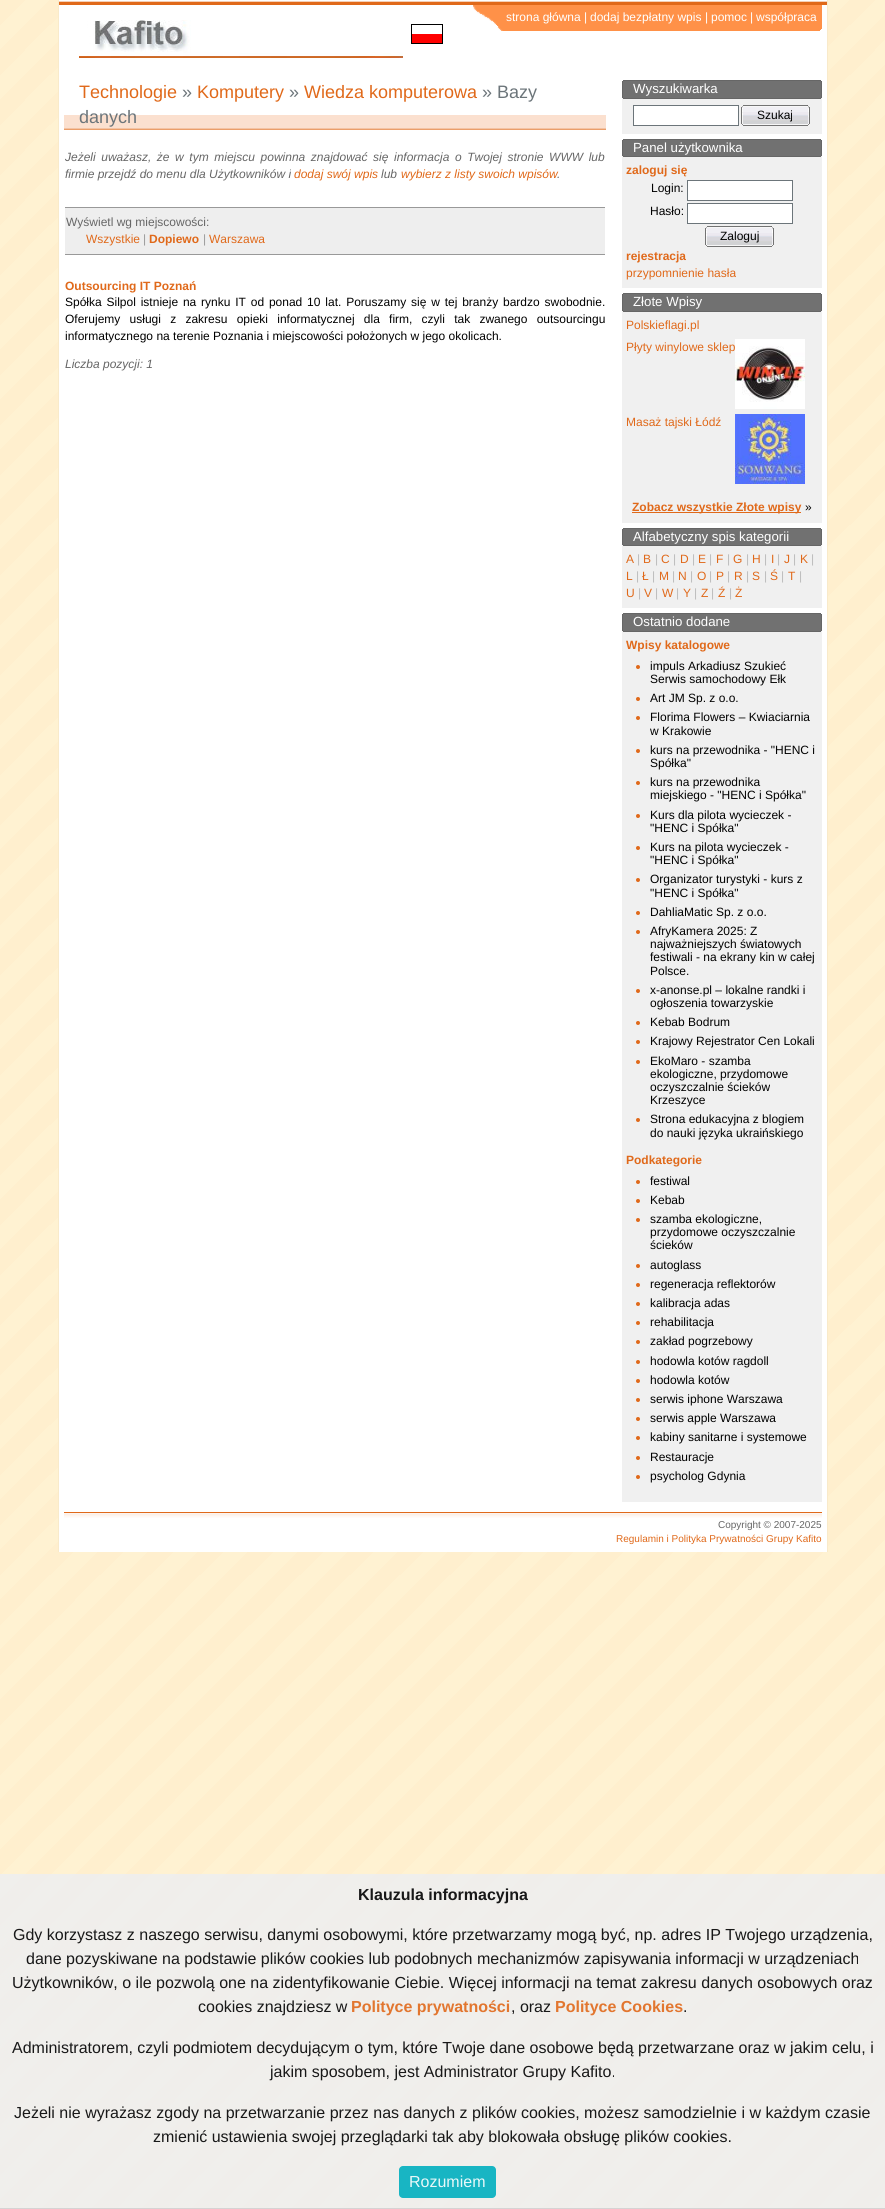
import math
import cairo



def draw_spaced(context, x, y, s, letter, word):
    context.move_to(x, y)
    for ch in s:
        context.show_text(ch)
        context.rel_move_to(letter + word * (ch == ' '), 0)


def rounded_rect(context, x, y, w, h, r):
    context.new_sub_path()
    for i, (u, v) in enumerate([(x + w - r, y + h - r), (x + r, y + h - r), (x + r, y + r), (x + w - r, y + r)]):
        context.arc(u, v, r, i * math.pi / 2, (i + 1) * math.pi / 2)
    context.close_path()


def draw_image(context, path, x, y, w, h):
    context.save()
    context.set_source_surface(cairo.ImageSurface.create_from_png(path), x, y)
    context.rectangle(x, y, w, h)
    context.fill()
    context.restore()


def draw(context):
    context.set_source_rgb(1, 1, 1)
    context.paint()
    draw_image(context, "images/1.png", 0, 0, 885, 2208)
    context.set_source_rgb(1, 1, 1)
    context.rectangle(59, 0, 768, 1552)
    context.fill()
    context.set_source_rgb(249 / 255, 234 / 255, 202 / 255)
    context.rectangle(827, 0, 1, 1552)
    context.fill()
    context.rectangle(58, 0, 1, 1552)
    context.fill()
    context.set_source_rgb(224 / 255, 105 / 255, 26 / 255)
    context.rectangle(59, 2, 768, 3)
    context.fill()
    context.set_source_rgb(245 / 255, 207 / 255, 181 / 255)
    context.rectangle(59, 1, 768, 1)
    context.fill()
    draw_image(context, "images/2.png", 473, 5, 30, 26)
    context.set_source_rgb(1, 145 / 255, 72 / 255)
    context.rectangle(503, 5, 317, 26)
    context.fill()
    draw_image(context, "images/3.png", 820, 5, 2, 25)
    draw_image(context, "images/4.png", 79, 20, 324, 38)
    draw_image(context, "images/5.png", 411, 24, 32, 20)
    draw_image(context, "images/6.png", 64, 115, 542, 15)
    context.set_source_rgb(238 / 255, 238 / 255, 238 / 255)
    context.rectangle(65, 208, 540, 46)
    context.fill()
    context.set_source_rgb(153 / 255, 153 / 255, 153 / 255)
    context.rectangle(65, 207, 540, 1)
    context.fill()
    context.rectangle(65, 254, 540, 1)
    context.fill()
    context.set_source_rgb(113 / 255, 113 / 255, 113 / 255)
    context.rectangle(623, 81, 198, 17)
    context.fill()
    context.set_source_rgb(102 / 255, 102 / 255, 102 / 255)
    context.rectangle(821, 81, 1, 17)
    context.fill()
    context.rectangle(622, 81, 1, 17)
    context.fill()
    context.rectangle(623, 80, 198, 1)
    context.fill()
    context.set_source_rgb(240 / 255, 240 / 255, 240 / 255)
    context.rectangle(622, 98, 200, 36)
    context.fill()
    context.set_source_rgb(102 / 255, 102 / 255, 102 / 255)
    context.rectangle(623, 98, 198, 1)
    context.fill()
    context.set_source_rgb(1, 1, 1)
    context.rectangle(633.5, 105.5, 105, 20)
    context.fill_preserve()
    context.set_source_rgb(108 / 255, 117 / 255, 122 / 255)
    context.set_line_width(1)
    context.stroke()
    draw_image(context, "images/7.png", 741, 105, 69, 21)
    context.set_source_rgb(113 / 255, 113 / 255, 113 / 255)
    context.rectangle(623, 140, 198, 16)
    context.fill()
    context.set_source_rgb(102 / 255, 102 / 255, 102 / 255)
    context.rectangle(821, 140, 1, 16)
    context.fill()
    context.rectangle(622, 140, 1, 16)
    context.fill()
    context.rectangle(623, 139, 198, 1)
    context.fill()
    context.set_source_rgb(240 / 255, 240 / 255, 240 / 255)
    context.rectangle(622, 156, 200, 132)
    context.fill()
    context.set_source_rgb(102 / 255, 102 / 255, 102 / 255)
    context.rectangle(623, 156, 198, 1)
    context.fill()
    context.set_source_rgb(1, 1, 1)
    context.rectangle(687.5, 180.5, 105, 20)
    context.fill_preserve()
    context.set_source_rgb(108 / 255, 117 / 255, 122 / 255)
    context.stroke()
    context.set_source_rgb(1, 1, 1)
    context.rectangle(687.5, 203.5, 105, 20)
    context.fill_preserve()
    context.set_source_rgb(108 / 255, 117 / 255, 122 / 255)
    context.stroke()
    draw_image(context, "images/7.png", 705, 226, 69, 21)
    context.set_source_rgb(113 / 255, 113 / 255, 113 / 255)
    context.rectangle(623, 294, 198, 17)
    context.fill()
    context.set_source_rgb(102 / 255, 102 / 255, 102 / 255)
    context.rectangle(821, 294, 1, 17)
    context.fill()
    context.rectangle(622, 294, 1, 17)
    context.fill()
    context.rectangle(623, 293, 198, 1)
    context.fill()
    context.set_source_rgb(240 / 255, 240 / 255, 240 / 255)
    context.rectangle(622, 311, 200, 212)
    context.fill()
    context.set_source_rgb(102 / 255, 102 / 255, 102 / 255)
    context.rectangle(623, 311, 198, 1)
    context.fill()
    draw_image(context, "images/8.png", 735, 339, 70, 70)
    draw_image(context, "images/9.png", 735, 414, 70, 70)
    context.set_source_rgb(224 / 255, 105 / 255, 26 / 255)
    context.rectangle(632, 512, 169, 1)
    context.fill()
    context.set_source_rgb(113 / 255, 113 / 255, 113 / 255)
    context.rectangle(623, 529, 198, 16)
    context.fill()
    context.set_source_rgb(102 / 255, 102 / 255, 102 / 255)
    context.rectangle(821, 529, 1, 16)
    context.fill()
    context.rectangle(622, 529, 1, 16)
    context.fill()
    context.rectangle(623, 528, 198, 1)
    context.fill()
    context.set_source_rgb(240 / 255, 240 / 255, 240 / 255)
    context.rectangle(622, 545, 200, 63)
    context.fill()
    context.set_source_rgb(102 / 255, 102 / 255, 102 / 255)
    context.rectangle(623, 545, 198, 1)
    context.fill()
    context.set_source_rgb(113 / 255, 113 / 255, 113 / 255)
    context.rectangle(623, 614, 198, 17)
    context.fill()
    context.set_source_rgb(102 / 255, 102 / 255, 102 / 255)
    context.rectangle(821, 614, 1, 17)
    context.fill()
    context.rectangle(622, 614, 1, 17)
    context.fill()
    context.rectangle(623, 613, 198, 1)
    context.fill()
    context.set_source_rgb(240 / 255, 240 / 255, 240 / 255)
    context.rectangle(622, 631, 200, 871)
    context.fill()
    context.set_source_rgb(102 / 255, 102 / 255, 102 / 255)
    context.rectangle(623, 631, 198, 1)
    context.fill()
    context.set_source_rgb(224 / 255, 105 / 255, 26 / 255)
    context.arc(638, 667, 2, 0, 2 * math.pi)
    context.fill()
    context.arc(638, 699, 2, 0, 2 * math.pi)
    context.fill()
    context.arc(638, 718, 2, 0, 2 * math.pi)
    context.fill()
    context.arc(638, 751, 2, 0, 2 * math.pi)
    context.fill()
    context.arc(638, 783, 2, 0, 2 * math.pi)
    context.fill()
    context.arc(638, 816, 2, 0, 2 * math.pi)
    context.fill()
    context.arc(638, 848, 2, 0, 2 * math.pi)
    context.fill()
    context.arc(638, 880, 2, 0, 2 * math.pi)
    context.fill()
    context.arc(638, 913, 2, 0, 2 * math.pi)
    context.fill()
    context.arc(638, 932, 2, 0, 2 * math.pi)
    context.fill()
    context.arc(638, 991, 2, 0, 2 * math.pi)
    context.fill()
    context.arc(638, 1023, 2, 0, 2 * math.pi)
    context.fill()
    context.arc(638, 1042, 2, 0, 2 * math.pi)
    context.fill()
    context.arc(638, 1062, 2, 0, 2 * math.pi)
    context.fill()
    context.arc(638, 1120, 2, 0, 2 * math.pi)
    context.fill()
    context.arc(638, 1182, 2, 0, 2 * math.pi)
    context.fill()
    context.arc(638, 1201, 2, 0, 2 * math.pi)
    context.fill()
    context.arc(638, 1220, 2, 0, 2 * math.pi)
    context.fill()
    context.arc(638, 1266, 2, 0, 2 * math.pi)
    context.fill()
    context.arc(638, 1285, 2, 0, 2 * math.pi)
    context.fill()
    context.arc(638, 1304, 2, 0, 2 * math.pi)
    context.fill()
    context.arc(638, 1323, 2, 0, 2 * math.pi)
    context.fill()
    context.arc(638, 1342, 2, 0, 2 * math.pi)
    context.fill()
    context.arc(638, 1362, 2, 0, 2 * math.pi)
    context.fill()
    context.arc(638, 1381, 2, 0, 2 * math.pi)
    context.fill()
    context.arc(638, 1400, 2, 0, 2 * math.pi)
    context.fill()
    context.arc(638, 1419, 2, 0, 2 * math.pi)
    context.fill()
    context.arc(638, 1438, 2, 0, 2 * math.pi)
    context.fill()
    context.arc(638, 1458, 2, 0, 2 * math.pi)
    context.fill()
    context.arc(638, 1477, 2, 0, 2 * math.pi)
    context.fill()
    draw_image(context, "images/10.png", 64, 1512, 758, 6)
    context.set_source_rgba(239 / 255, 239 / 255, 239 / 255, 0.9)
    context.rectangle(0, 1874, 885, 334)
    context.fill()
    context.set_source_rgb(214 / 255, 211 / 255, 211 / 255)
    context.rectangle(0, 2208, 885, 1)
    context.fill()
    context.set_source_rgb(24 / 255, 181 / 255, 195 / 255)
    rounded_rect(context, 399, 2166, 97, 32, 4)
    context.fill()
    context.select_font_face("Liberation Sans")
    context.set_font_size(12)
    context.set_source_rgb(1, 1, 1)
    context.move_to(506, 21)
    context.show_text("strona główna")
    context.move_to(584, 21)
    context.show_text("|")
    context.move_to(590, 21)
    context.show_text("dodaj bezpłatny wpis")
    context.move_to(705, 21)
    context.show_text("|")
    context.move_to(711, 21)
    context.show_text("pomoc")
    context.move_to(750, 21)
    context.show_text("|")
    context.move_to(756, 21)
    context.show_text("współpraca")
    context.set_font_size(18)
    context.set_source_rgb(224 / 255, 105 / 255, 26 / 255)
    context.move_to(79, 98)
    context.show_text("Technologie")
    context.set_source_rgb(108 / 255, 117 / 255, 122 / 255)
    context.move_to(182, 98)
    context.show_text("»")
    context.set_source_rgb(224 / 255, 105 / 255, 26 / 255)
    context.move_to(197, 98)
    context.show_text("Komputery")
    context.set_source_rgb(108 / 255, 117 / 255, 122 / 255)
    context.move_to(289, 98)
    context.show_text("»")
    context.set_source_rgb(224 / 255, 105 / 255, 26 / 255)
    context.move_to(304, 98)
    context.show_text("Wiedza komputerowa")
    context.set_source_rgb(108 / 255, 117 / 255, 122 / 255)
    context.move_to(482, 98)
    context.show_text("» Bazy")
    context.move_to(79, 123)
    context.show_text("danych")
    context.select_font_face("Liberation Sans", cairo.FontSlant.ITALIC)
    context.set_font_size(12)
    context.set_source_rgb(102 / 255, 102 / 255, 102 / 255)
    draw_spaced(context, 65, 161, "Jeżeli uważasz, że w tym miejscu powinna znajdować się informacja", 0, 2.25)
    draw_spaced(context, 455, 161, "o Twojej stronie WWW lub", 0, 2.25)
    context.move_to(65, 178)
    context.show_text("firmie przejdź do menu dla Użytkowników i")
    context.set_source_rgb(224 / 255, 105 / 255, 26 / 255)
    context.move_to(294, 178)
    context.show_text("dodaj swój wpis")
    context.set_source_rgb(102 / 255, 102 / 255, 102 / 255)
    context.move_to(381, 178)
    context.show_text("lub")
    context.set_source_rgb(224 / 255, 105 / 255, 26 / 255)
    context.move_to(401, 178)
    context.show_text("wybierz z listy swoich wpisów")
    context.set_source_rgb(102 / 255, 102 / 255, 102 / 255)
    context.move_to(557, 178)
    context.show_text(".")
    context.select_font_face("Liberation Sans")
    context.move_to(66, 226)
    context.show_text("Wyświetl wg miejscowości:")
    context.set_source_rgb(224 / 255, 105 / 255, 26 / 255)
    context.move_to(86, 243)
    context.show_text("Wszystkie")
    context.set_source_rgb(153 / 255, 153 / 255, 153 / 255)
    context.move_to(143, 243)
    context.show_text("|")
    context.select_font_face("Liberation Sans", cairo.FontSlant.NORMAL, cairo.FontWeight.BOLD)
    context.set_source_rgb(224 / 255, 105 / 255, 26 / 255)
    context.move_to(149, 243)
    context.show_text("Dopiewo")
    context.select_font_face("Liberation Sans")
    context.set_source_rgb(153 / 255, 153 / 255, 153 / 255)
    context.move_to(203, 243)
    context.show_text("|")
    context.set_source_rgb(224 / 255, 105 / 255, 26 / 255)
    context.move_to(209, 243)
    context.show_text("Warszawa")
    context.select_font_face("Liberation Sans", cairo.FontSlant.NORMAL, cairo.FontWeight.BOLD)
    context.move_to(65, 290)
    context.show_text("Outsourcing IT Poznań")
    context.select_font_face("Liberation Sans")
    context.set_source_rgb(0, 0, 0)
    draw_spaced(context, 65, 306, "Spółka Silpol istnieje na rynku IT od ponad 10 lat. Poruszamy się w tej branży bardzo swobodnie.", 0, 1.5)
    draw_spaced(context, 65, 323, "Oferujemy usługi z zakresu opieki informatycznej dla firm, czyli tak zwanego outsourcingu", 0, 5.9)
    context.move_to(65, 340)
    context.show_text("informatycznego na terenie Poznania i miejscowości położonych w jego okolicach.")
    context.select_font_face("Liberation Sans", cairo.FontSlant.ITALIC)
    context.set_source_rgb(102 / 255, 102 / 255, 102 / 255)
    context.move_to(65, 368)
    context.show_text("Liczba pozycji: 1")
    context.select_font_face("Liberation Sans")
    context.set_font_size(13.25)
    context.set_source_rgb(1, 1, 1)
    context.move_to(633, 93)
    context.show_text("Wyszukiwarka")
    context.set_font_size(12)
    context.set_source_rgb(0, 0, 0)
    context.move_to(757, 119)
    context.show_text("Szukaj")
    context.set_font_size(13.25)
    context.set_source_rgb(1, 1, 1)
    context.move_to(633, 152)
    context.show_text("Panel użytkownika")
    context.select_font_face("Liberation Sans", cairo.FontSlant.NORMAL, cairo.FontWeight.BOLD)
    context.set_font_size(12)
    context.set_source_rgb(224 / 255, 105 / 255, 26 / 255)
    context.move_to(626, 174)
    context.show_text("zaloguj się")
    context.select_font_face("Liberation Sans")
    context.set_source_rgb(0, 0, 0)
    context.move_to(651, 192)
    context.show_text("Login:")
    context.move_to(650, 215)
    context.show_text("Hasło:")
    context.move_to(720, 240)
    context.show_text("Zaloguj")
    context.select_font_face("Liberation Sans", cairo.FontSlant.NORMAL, cairo.FontWeight.BOLD)
    context.set_source_rgb(224 / 255, 105 / 255, 26 / 255)
    context.move_to(626, 260)
    context.show_text("rejestracja")
    context.select_font_face("Liberation Sans")
    context.move_to(626, 277)
    context.show_text("przypomnienie hasła")
    context.set_font_size(13.25)
    context.set_source_rgb(1, 1, 1)
    context.move_to(633, 306)
    context.show_text("Złote Wpisy")
    context.set_font_size(12)
    context.set_source_rgb(224 / 255, 105 / 255, 26 / 255)
    context.move_to(626, 329)
    context.show_text("Polskieflagi.pl")
    context.move_to(626, 351)
    context.show_text("Płyty winylowe sklep")
    context.move_to(626, 426)
    context.show_text("Masaż tajski Łódź")
    context.select_font_face("Liberation Sans", cairo.FontSlant.NORMAL, cairo.FontWeight.BOLD)
    context.move_to(632, 511)
    context.show_text("Zobacz wszystkie Złote wpisy")
    context.select_font_face("Liberation Sans")
    context.set_source_rgb(0, 0, 0)
    context.move_to(805, 511)
    context.show_text("»")
    context.set_font_size(13.25)
    context.set_source_rgb(1, 1, 1)
    context.move_to(633, 541)
    context.show_text("Alfabetyczny spis kategorii")
    context.set_font_size(12)
    context.set_source_rgb(224 / 255, 105 / 255, 26 / 255)
    context.move_to(626, 563)
    context.show_text("A")
    context.set_source_rgb(187 / 255, 187 / 255, 187 / 255)
    context.move_to(637, 563)
    context.show_text("|")
    context.set_source_rgb(224 / 255, 105 / 255, 26 / 255)
    context.move_to(643, 563)
    context.show_text("B")
    context.set_source_rgb(187 / 255, 187 / 255, 187 / 255)
    context.move_to(655, 563)
    context.show_text("|")
    context.set_source_rgb(224 / 255, 105 / 255, 26 / 255)
    context.move_to(661, 563)
    context.show_text("C")
    context.set_source_rgb(187 / 255, 187 / 255, 187 / 255)
    context.move_to(673, 563)
    context.show_text("|")
    context.set_source_rgb(224 / 255, 105 / 255, 26 / 255)
    context.move_to(680, 563)
    context.show_text("D")
    context.set_source_rgb(187 / 255, 187 / 255, 187 / 255)
    context.move_to(692, 563)
    context.show_text("|")
    context.set_source_rgb(224 / 255, 105 / 255, 26 / 255)
    context.move_to(698, 563)
    context.show_text("E")
    context.set_source_rgb(187 / 255, 187 / 255, 187 / 255)
    context.move_to(709, 563)
    context.show_text("|")
    context.set_source_rgb(224 / 255, 105 / 255, 26 / 255)
    context.move_to(716, 563)
    context.show_text("F")
    context.set_source_rgb(187 / 255, 187 / 255, 187 / 255)
    context.move_to(727, 563)
    context.show_text("|")
    context.set_source_rgb(224 / 255, 105 / 255, 26 / 255)
    context.move_to(733, 563)
    context.show_text("G")
    context.set_source_rgb(187 / 255, 187 / 255, 187 / 255)
    context.move_to(746, 563)
    context.show_text("|")
    context.set_source_rgb(224 / 255, 105 / 255, 26 / 255)
    context.move_to(752, 563)
    context.show_text("H")
    context.set_source_rgb(187 / 255, 187 / 255, 187 / 255)
    context.move_to(764, 563)
    context.show_text("|")
    context.set_source_rgb(224 / 255, 105 / 255, 26 / 255)
    context.move_to(771, 563)
    context.show_text("I")
    context.set_source_rgb(187 / 255, 187 / 255, 187 / 255)
    context.move_to(777, 563)
    context.show_text("|")
    context.set_source_rgb(224 / 255, 105 / 255, 26 / 255)
    context.move_to(784, 563)
    context.show_text("J")
    context.set_source_rgb(187 / 255, 187 / 255, 187 / 255)
    context.move_to(793, 563)
    context.show_text("|")
    context.set_source_rgb(224 / 255, 105 / 255, 26 / 255)
    context.move_to(800, 563)
    context.show_text("K")
    context.set_source_rgb(187 / 255, 187 / 255, 187 / 255)
    context.move_to(811, 563)
    context.show_text("|")
    context.set_source_rgb(224 / 255, 105 / 255, 26 / 255)
    context.move_to(626, 580)
    context.show_text("L")
    context.set_source_rgb(187 / 255, 187 / 255, 187 / 255)
    context.move_to(636, 580)
    context.show_text("|")
    context.set_source_rgb(224 / 255, 105 / 255, 26 / 255)
    context.move_to(642, 580)
    context.show_text("Ł")
    context.set_source_rgb(187 / 255, 187 / 255, 187 / 255)
    context.move_to(652, 580)
    context.show_text("|")
    context.set_source_rgb(224 / 255, 105 / 255, 26 / 255)
    context.move_to(659, 580)
    context.show_text("M")
    context.set_source_rgb(187 / 255, 187 / 255, 187 / 255)
    context.move_to(672, 580)
    context.show_text("|")
    context.set_source_rgb(224 / 255, 105 / 255, 26 / 255)
    context.move_to(678, 580)
    context.show_text("N")
    context.set_source_rgb(187 / 255, 187 / 255, 187 / 255)
    context.move_to(690, 580)
    context.show_text("|")
    context.set_source_rgb(224 / 255, 105 / 255, 26 / 255)
    context.move_to(697, 580)
    context.show_text("O")
    context.set_source_rgb(187 / 255, 187 / 255, 187 / 255)
    context.move_to(709, 580)
    context.show_text("|")
    context.set_source_rgb(224 / 255, 105 / 255, 26 / 255)
    context.move_to(716, 580)
    context.show_text("P")
    context.set_source_rgb(187 / 255, 187 / 255, 187 / 255)
    context.move_to(727, 580)
    context.show_text("|")
    context.set_source_rgb(224 / 255, 105 / 255, 26 / 255)
    context.move_to(734, 580)
    context.show_text("R")
    context.set_source_rgb(187 / 255, 187 / 255, 187 / 255)
    context.move_to(746, 580)
    context.show_text("|")
    context.set_source_rgb(224 / 255, 105 / 255, 26 / 255)
    context.move_to(752, 580)
    context.show_text("S")
    context.set_source_rgb(187 / 255, 187 / 255, 187 / 255)
    context.move_to(764, 580)
    context.show_text("|")
    context.set_source_rgb(224 / 255, 105 / 255, 26 / 255)
    context.move_to(770, 580)
    context.show_text("Ś")
    context.set_source_rgb(187 / 255, 187 / 255, 187 / 255)
    context.move_to(781, 580)
    context.show_text("|")
    context.set_source_rgb(224 / 255, 105 / 255, 26 / 255)
    context.move_to(788, 580)
    context.show_text("T")
    context.set_source_rgb(187 / 255, 187 / 255, 187 / 255)
    context.move_to(799, 580)
    context.show_text("|")
    context.set_source_rgb(224 / 255, 105 / 255, 26 / 255)
    context.move_to(626, 597)
    context.show_text("U")
    context.set_source_rgb(187 / 255, 187 / 255, 187 / 255)
    context.move_to(638, 597)
    context.show_text("|")
    context.set_source_rgb(224 / 255, 105 / 255, 26 / 255)
    context.move_to(644, 597)
    context.show_text("V")
    context.set_source_rgb(187 / 255, 187 / 255, 187 / 255)
    context.move_to(655, 597)
    context.show_text("|")
    context.set_source_rgb(224 / 255, 105 / 255, 26 / 255)
    context.move_to(662, 597)
    context.show_text("W")
    context.set_source_rgb(187 / 255, 187 / 255, 187 / 255)
    context.move_to(676, 597)
    context.show_text("|")
    context.set_source_rgb(224 / 255, 105 / 255, 26 / 255)
    context.move_to(683, 597)
    context.show_text("Y")
    context.set_source_rgb(187 / 255, 187 / 255, 187 / 255)
    context.move_to(694, 597)
    context.show_text("|")
    context.set_source_rgb(224 / 255, 105 / 255, 26 / 255)
    context.move_to(701, 597)
    context.show_text("Z")
    context.set_source_rgb(187 / 255, 187 / 255, 187 / 255)
    context.move_to(711, 597)
    context.show_text("|")
    context.set_source_rgb(224 / 255, 105 / 255, 26 / 255)
    context.move_to(718, 597)
    context.show_text("Ź")
    context.set_source_rgb(187 / 255, 187 / 255, 187 / 255)
    context.move_to(729, 597)
    context.show_text("|")
    context.set_source_rgb(224 / 255, 105 / 255, 26 / 255)
    context.move_to(735, 597)
    context.show_text("Ż")
    context.set_font_size(13.25)
    context.set_source_rgb(1, 1, 1)
    context.move_to(633, 626)
    context.show_text("Ostatnio dodane")
    context.select_font_face("Liberation Sans", cairo.FontSlant.NORMAL, cairo.FontWeight.BOLD)
    context.set_font_size(12)
    context.set_source_rgb(224 / 255, 105 / 255, 26 / 255)
    context.move_to(626, 649)
    context.show_text("Wpisy katalogowe")
    context.select_font_face("Liberation Sans")
    context.set_source_rgb(0, 0, 0)
    context.move_to(650, 670)
    context.show_text("impuls Arkadiusz Szukieć")
    context.move_to(650, 683)
    context.show_text("Serwis samochodowy Ełk")
    context.move_to(650, 702)
    context.show_text("Art JM Sp. z o.o.")
    context.move_to(650, 721)
    context.show_text("Florima Flowers – Kwiaciarnia")
    context.move_to(650, 735)
    context.show_text("w Krakowie")
    context.move_to(650, 754)
    context.show_text("kurs na przewodnika - \"HENC i")
    context.move_to(650, 767)
    context.show_text("Spółka\"")
    context.move_to(650, 786)
    context.show_text("kurs na przewodnika")
    context.move_to(650, 799)
    context.show_text("miejskiego - \"HENC i Spółka\"")
    context.move_to(650, 819)
    context.show_text("Kurs dla pilota wycieczek -")
    context.move_to(650, 832)
    context.show_text("\"HENC i Spółka\"")
    context.move_to(650, 851)
    context.show_text("Kurs na pilota wycieczek -")
    context.move_to(650, 864)
    context.show_text("\"HENC i Spółka\"")
    context.move_to(650, 883)
    context.show_text("Organizator turystyki - kurs z")
    context.move_to(650, 897)
    context.show_text("\"HENC i Spółka\"")
    context.move_to(650, 916)
    context.show_text("DahliaMatic Sp. z o.o.")
    context.move_to(650, 935)
    context.show_text("AfryKamera 2025: Z")
    context.move_to(650, 948)
    context.show_text("najważniejszych światowych")
    context.move_to(650, 961)
    context.show_text("festiwali - na ekrany kin w całej")
    context.move_to(650, 975)
    context.show_text("Polsce.")
    context.move_to(650, 994)
    context.show_text("x-anonse.pl – lokalne randki i")
    context.move_to(650, 1007)
    context.show_text("ogłoszenia towarzyskie")
    context.move_to(650, 1026)
    context.show_text("Kebab Bodrum")
    context.move_to(650, 1045)
    context.show_text("Krajowy Rejestrator Cen Lokali")
    context.move_to(650, 1065)
    context.show_text("EkoMaro - szamba")
    context.move_to(650, 1078)
    context.show_text("ekologiczne, przydomowe")
    context.move_to(650, 1091)
    context.show_text("oczyszczalnie ścieków")
    context.move_to(650, 1104)
    context.show_text("Krzeszyce")
    context.move_to(650, 1123)
    context.show_text("Strona edukacyjna z blogiem")
    context.move_to(650, 1137)
    context.show_text("do nauki języka ukraińskiego")
    context.select_font_face("Liberation Sans", cairo.FontSlant.NORMAL, cairo.FontWeight.BOLD)
    context.set_source_rgb(224 / 255, 105 / 255, 26 / 255)
    context.move_to(626, 1164)
    context.show_text("Podkategorie")
    context.select_font_face("Liberation Sans")
    context.set_source_rgb(0, 0, 0)
    context.move_to(650, 1185)
    context.show_text("festiwal")
    context.move_to(650, 1204)
    context.show_text("Kebab")
    context.move_to(650, 1223)
    context.show_text("szamba ekologiczne,")
    context.move_to(650, 1236)
    context.show_text("przydomowe oczyszczalnie")
    context.move_to(650, 1249)
    context.show_text("ścieków")
    context.move_to(650, 1269)
    context.show_text("autoglass")
    context.move_to(650, 1288)
    context.show_text("regeneracja reflektorów")
    context.move_to(650, 1307)
    context.show_text("kalibracja adas")
    context.move_to(650, 1326)
    context.show_text("rehabilitacja")
    context.move_to(650, 1345)
    context.show_text("zakład pogrzebowy")
    context.move_to(650, 1365)
    context.show_text("hodowla kotów ragdoll")
    context.move_to(650, 1384)
    context.show_text("hodowla kotów")
    context.move_to(650, 1403)
    context.show_text("serwis iphone Warszawa")
    context.move_to(650, 1422)
    context.show_text("serwis apple Warszawa")
    context.move_to(650, 1441)
    context.show_text("kabiny sanitarne i systemowe")
    context.move_to(650, 1461)
    context.show_text("Restauracje")
    context.move_to(650, 1480)
    context.show_text("psycholog Gdynia")
    context.set_font_size(10)
    context.set_source_rgb(102 / 255, 102 / 255, 102 / 255)
    context.move_to(718, 1528)
    context.show_text("Copyright © 2007-2025")
    context.set_source_rgb(224 / 255, 105 / 255, 26 / 255)
    context.move_to(616, 1542)
    context.show_text("Regulamin i Polityka Prywatności Grupy Kafito")
    context.select_font_face("Liberation Sans", cairo.FontSlant.NORMAL, cairo.FontWeight.BOLD)
    context.set_font_size(16)
    context.set_source_rgb(24 / 255, 24 / 255, 24 / 255)
    context.move_to(358, 1900)
    context.show_text("Klauzula informacyjna")
    context.select_font_face("Liberation Sans")
    context.move_to(13, 1940)
    context.show_text("Gdy korzystasz z naszego serwisu, danymi osobowymi, które przetwarzamy mogą być, np. adres IP Twojego urządzenia,")
    context.move_to(26, 1964)
    context.show_text("dane pozyskiwane na podstawie plików cookies lub podobnych mechanizmów zapisywania informacji w urządzeniach")
    context.move_to(12, 1988)
    context.show_text("Użytkowników, o ile pozwolą one na zidentyfikowanie Ciebie. Więcej informacji na temat zakresu danych osobowych oraz")
    context.move_to(198, 2012)
    context.show_text("cookies znajdziesz w")
    context.select_font_face("Liberation Sans", cairo.FontSlant.NORMAL, cairo.FontWeight.BOLD)
    context.set_source_rgb(226 / 255, 118 / 255, 47 / 255)
    context.move_to(351, 2012)
    context.show_text("Polityce prywatności")
    context.select_font_face("Liberation Sans")
    context.set_source_rgb(24 / 255, 24 / 255, 24 / 255)
    context.move_to(511, 2012)
    context.show_text(", oraz")
    context.select_font_face("Liberation Sans", cairo.FontSlant.NORMAL, cairo.FontWeight.BOLD)
    context.set_source_rgb(226 / 255, 118 / 255, 47 / 255)
    context.move_to(555, 2012)
    context.show_text("Polityce Cookies")
    context.select_font_face("Liberation Sans")
    context.set_source_rgb(24 / 255, 24 / 255, 24 / 255)
    context.move_to(683, 2012)
    context.show_text(".")
    context.move_to(12, 2053)
    context.show_text("Administratorem, czyli podmiotem decydującym o tym, które Twoje dane osobowe będą przetwarzane oraz w jakim celu, i")
    context.move_to(270, 2077)
    context.show_text("jakim sposobem, jest Administrator Grupy Kafito.")
    context.move_to(14, 2118)
    context.show_text("Jeżeli nie wyrażasz zgody na przetwarzanie przez nas danych z plików cookies, możesz samodzielnie i w każdym czasie")
    context.move_to(153, 2142)
    context.show_text("zmienić ustawienia swojej przeglądarki tak aby blokowała obsługę plików cookies.")
    context.set_source_rgb(232 / 255, 248 / 255, 249 / 255)
    context.move_to(409, 2187)
    context.show_text("Rozumiem")


surface = cairo.ImageSurface(cairo.Format.RGB24, 885, 2209)
context = cairo.Context(surface)
options = cairo.FontOptions()
options.set_hint_metrics(cairo.HintMetrics.OFF)
options.set_hint_style(cairo.HintStyle.NONE)
context.set_font_options(options)
context.set_miter_limit(4)
draw(context)
surface.write_to_png("out.png")
